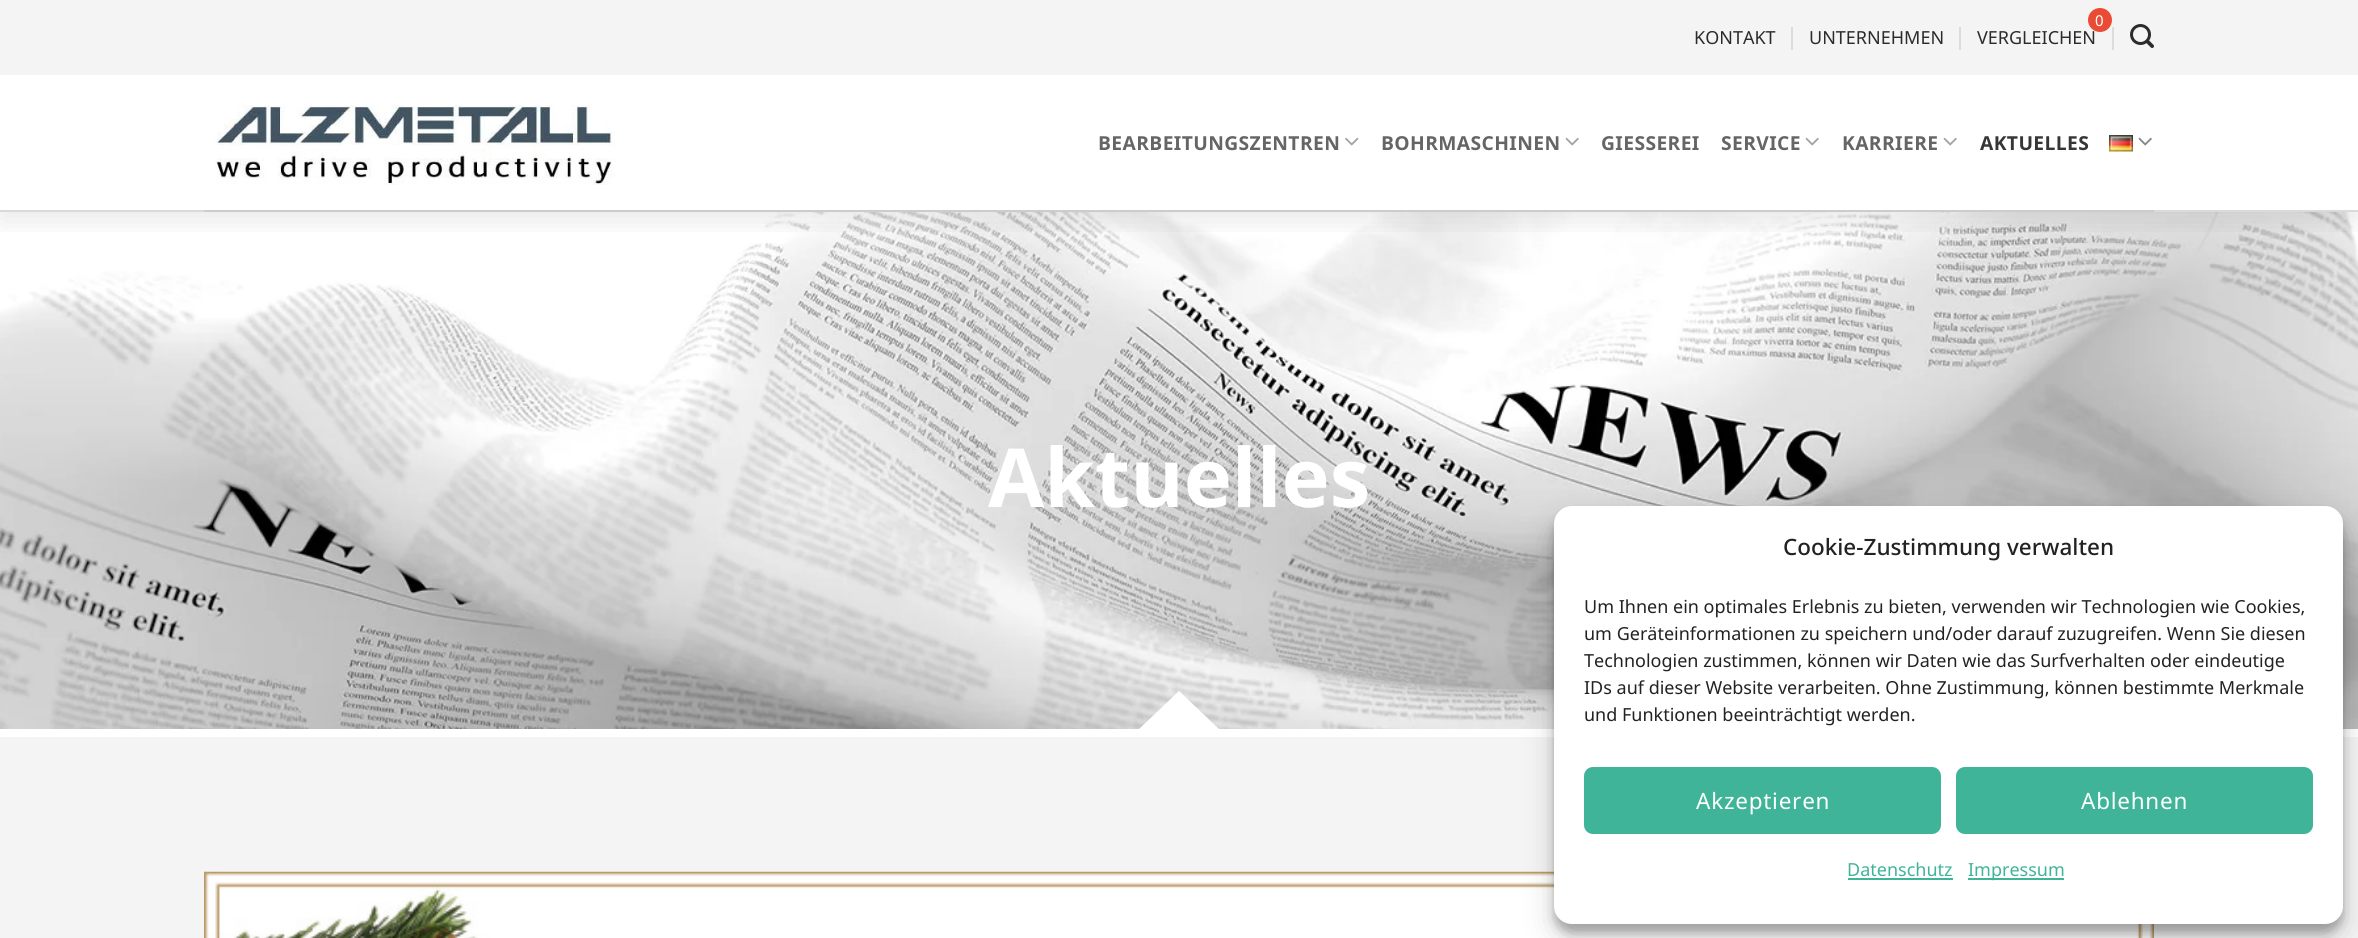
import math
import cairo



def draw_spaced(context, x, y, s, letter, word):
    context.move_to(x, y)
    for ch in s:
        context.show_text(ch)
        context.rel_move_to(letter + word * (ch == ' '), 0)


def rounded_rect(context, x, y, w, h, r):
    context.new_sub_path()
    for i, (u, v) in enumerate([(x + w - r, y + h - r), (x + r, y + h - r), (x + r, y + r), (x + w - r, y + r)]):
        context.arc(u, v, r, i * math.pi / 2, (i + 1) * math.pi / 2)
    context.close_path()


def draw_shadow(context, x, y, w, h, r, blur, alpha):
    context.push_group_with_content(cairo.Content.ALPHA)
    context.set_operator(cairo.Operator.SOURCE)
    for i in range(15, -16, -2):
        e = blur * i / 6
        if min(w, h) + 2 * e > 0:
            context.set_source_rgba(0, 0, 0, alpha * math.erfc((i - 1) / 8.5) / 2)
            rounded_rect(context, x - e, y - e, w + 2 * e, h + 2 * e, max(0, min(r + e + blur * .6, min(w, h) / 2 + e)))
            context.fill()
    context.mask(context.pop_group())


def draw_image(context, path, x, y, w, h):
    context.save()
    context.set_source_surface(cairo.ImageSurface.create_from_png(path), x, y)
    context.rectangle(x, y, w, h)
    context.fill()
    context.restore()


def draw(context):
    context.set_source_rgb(1, 1, 1)
    context.paint()
    draw_image(context, "images/7.png", 0, 212, 2358, 517)
    context.save()
    context.rectangle(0, 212, 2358, 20)
    context.clip()
    context.set_source_rgb(0, 0, 0)
    draw_shadow(context, 0, 9, 2358, 212, 0, 15, 0.09)
    context.restore()
    context.set_source_rgb(218 / 255, 218 / 255, 218 / 255)
    context.rectangle(0, 210, 2358, 2)
    context.fill()
    context.set_source_rgb(244 / 255, 244 / 255, 244 / 255)
    context.rectangle(0, 0, 2358, 75)
    context.fill()
    context.set_source_rgb(220 / 255, 220 / 255, 220 / 255)
    context.rectangle(1791, 27, 2, 23)
    context.fill()
    context.rectangle(1959, 27, 2, 23)
    context.fill()
    context.rectangle(2112, 27, 2, 23)
    context.fill()
    draw_image(context, "images/1.png", 2130, 24, 24, 24)
    draw_image(context, "images/2.png", 215, 104, 400, 81)
    draw_image(context, "images/3.png", 1345, 137, 14, 9)
    draw_image(context, "images/4.png", 1565, 137, 14, 9)
    draw_image(context, "images/4.png", 1805, 137, 14, 9)
    draw_image(context, "images/4.png", 1943, 137, 14, 9)
    draw_image(context, "images/5.png", 2109, 135, 24, 17)
    draw_image(context, "images/6.png", 2138, 137, 14, 9)
    context.set_source_rgb(204 / 255, 204 / 255, 204 / 255)
    context.rectangle(204, 210, 1950, 2)
    context.fill()
    context.set_source_rgb(1, 1, 1)
    context.new_path()
    context.move_to(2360, 738)
    context.line_to(-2, 738)
    context.line_to(-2, 729)
    context.line_to(1139, 729)
    context.line_to(1179, 691)
    context.line_to(1219, 729)
    context.line_to(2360, 729)
    context.close_path()
    context.fill()
    context.set_source_rgb(244 / 255, 244 / 255, 244 / 255)
    context.rectangle(0, 737, 2358, 201)
    context.fill()
    draw_image(context, "images/8.png", 204, 871, 1950, 67)
    context.set_source_rgb(0, 0, 0)
    draw_shadow(context, 1554, 515, 789, 418, 18, 4.5, 0.23)
    draw_shadow(context, 1554, 521, 789, 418, 18, 15, 0.19)
    context.set_source_rgb(1, 1, 1)
    rounded_rect(context, 1554, 506, 789, 418, 18)
    context.fill()
    context.set_source_rgb(63 / 255, 180 / 255, 152 / 255)
    rounded_rect(context, 1585, 768, 355, 65, 8)
    context.fill_preserve()
    context.stroke()
    rounded_rect(context, 1957, 768, 355, 65, 8)
    context.fill_preserve()
    context.stroke()
    context.rectangle(1848, 878, 105, 2)
    context.fill()
    context.rectangle(1968, 878, 96, 2)
    context.fill()
    context.select_font_face("Noto Sans")
    context.set_font_size(18)
    context.set_source_rgb(43 / 255, 43 / 255, 43 / 255)
    context.move_to(1694, 44)
    context.show_text("KONTAKT")
    context.move_to(1809, 44)
    context.show_text("UNTERNEHMEN")
    context.move_to(1977, 44)
    context.show_text("VERGLEICHEN")
    context.set_source_rgb(233 / 255, 75 / 255, 53 / 255)
    context.new_path()
    context.arc(2100, 20, 12, 0, 2 * math.pi)
    context.fill()
    context.set_font_size(15)
    context.set_source_rgb(1, 1, 1)
    context.move_to(2095, 26)
    context.show_text("0")
    context.select_font_face("Noto Sans", cairo.FontSlant.NORMAL, cairo.FontWeight.BOLD)
    context.set_font_size(19.25)
    context.set_source_rgb(101 / 255, 101 / 255, 101 / 255)
    draw_spaced(context, 1098, 150, "BEARBEITUNGSZENTREN", 0.4, 0)
    draw_spaced(context, 1381, 150, "BOHRMASCHINEN", 0.4, 0)
    draw_spaced(context, 1601, 150, "GIESSEREI", 0.4, 0)
    draw_spaced(context, 1721, 150, "SERVICE", 0.4, 0)
    draw_spaced(context, 1842, 150, "KARRIERE", 0.4, 0)
    context.set_source_rgb(54 / 255, 54 / 255, 54 / 255)
    draw_spaced(context, 1980, 150, "AKTUELLES", 0.4, 0)
    context.set_font_size(81.5)
    context.set_source_rgb(1, 1, 1)
    context.move_to(988, 507)
    context.show_text("Aktuelles")
    context.select_font_face("Noto Sans Medium")
    context.set_font_size(22.5)
    context.set_source_rgb(34 / 255, 34 / 255, 34 / 255)
    context.move_to(1783, 555)
    context.show_text("Cookie-Zustimmung verwalten")
    context.select_font_face("Noto Sans")
    context.set_font_size(18)
    context.move_to(1584, 613)
    context.show_text("Um Ihnen ein optimales Erlebnis zu bieten, verwenden wir Technologien wie Cookies,")
    context.move_to(1584, 640)
    context.show_text("um Geräteinformationen zu speichern und/oder darauf zuzugreifen. Wenn Sie diesen")
    context.move_to(1584, 667)
    context.show_text("Technologien zustimmen, können wir Daten wie das Surfverhalten oder eindeutige")
    context.move_to(1584, 694)
    context.show_text("IDs auf dieser Website verarbeiten. Ohne Zustimmung, können bestimmte Merkmale")
    context.move_to(1584, 721)
    context.show_text("und Funktionen beeinträchtigt werden.")
    context.set_font_size(22.5)
    context.set_source_rgb(1, 1, 1)
    draw_spaced(context, 1696, 809, "Akzeptieren", 0.75, 0)
    draw_spaced(context, 2081, 809, "Ablehnen", 0.75, 0)
    context.set_font_size(18)
    context.set_source_rgb(63 / 255, 180 / 255, 152 / 255)
    context.move_to(1847, 876)
    context.show_text("Datenschutz")
    context.move_to(1968, 876)
    context.show_text("Impressum")


surface = cairo.ImageSurface(cairo.Format.RGB24, 2358, 938)
context = cairo.Context(surface)
options = cairo.FontOptions()
options.set_hint_metrics(cairo.HintMetrics.OFF)
options.set_hint_style(cairo.HintStyle.NONE)
context.set_font_options(options)
context.set_miter_limit(4)
draw(context)
surface.write_to_png("out.png")
